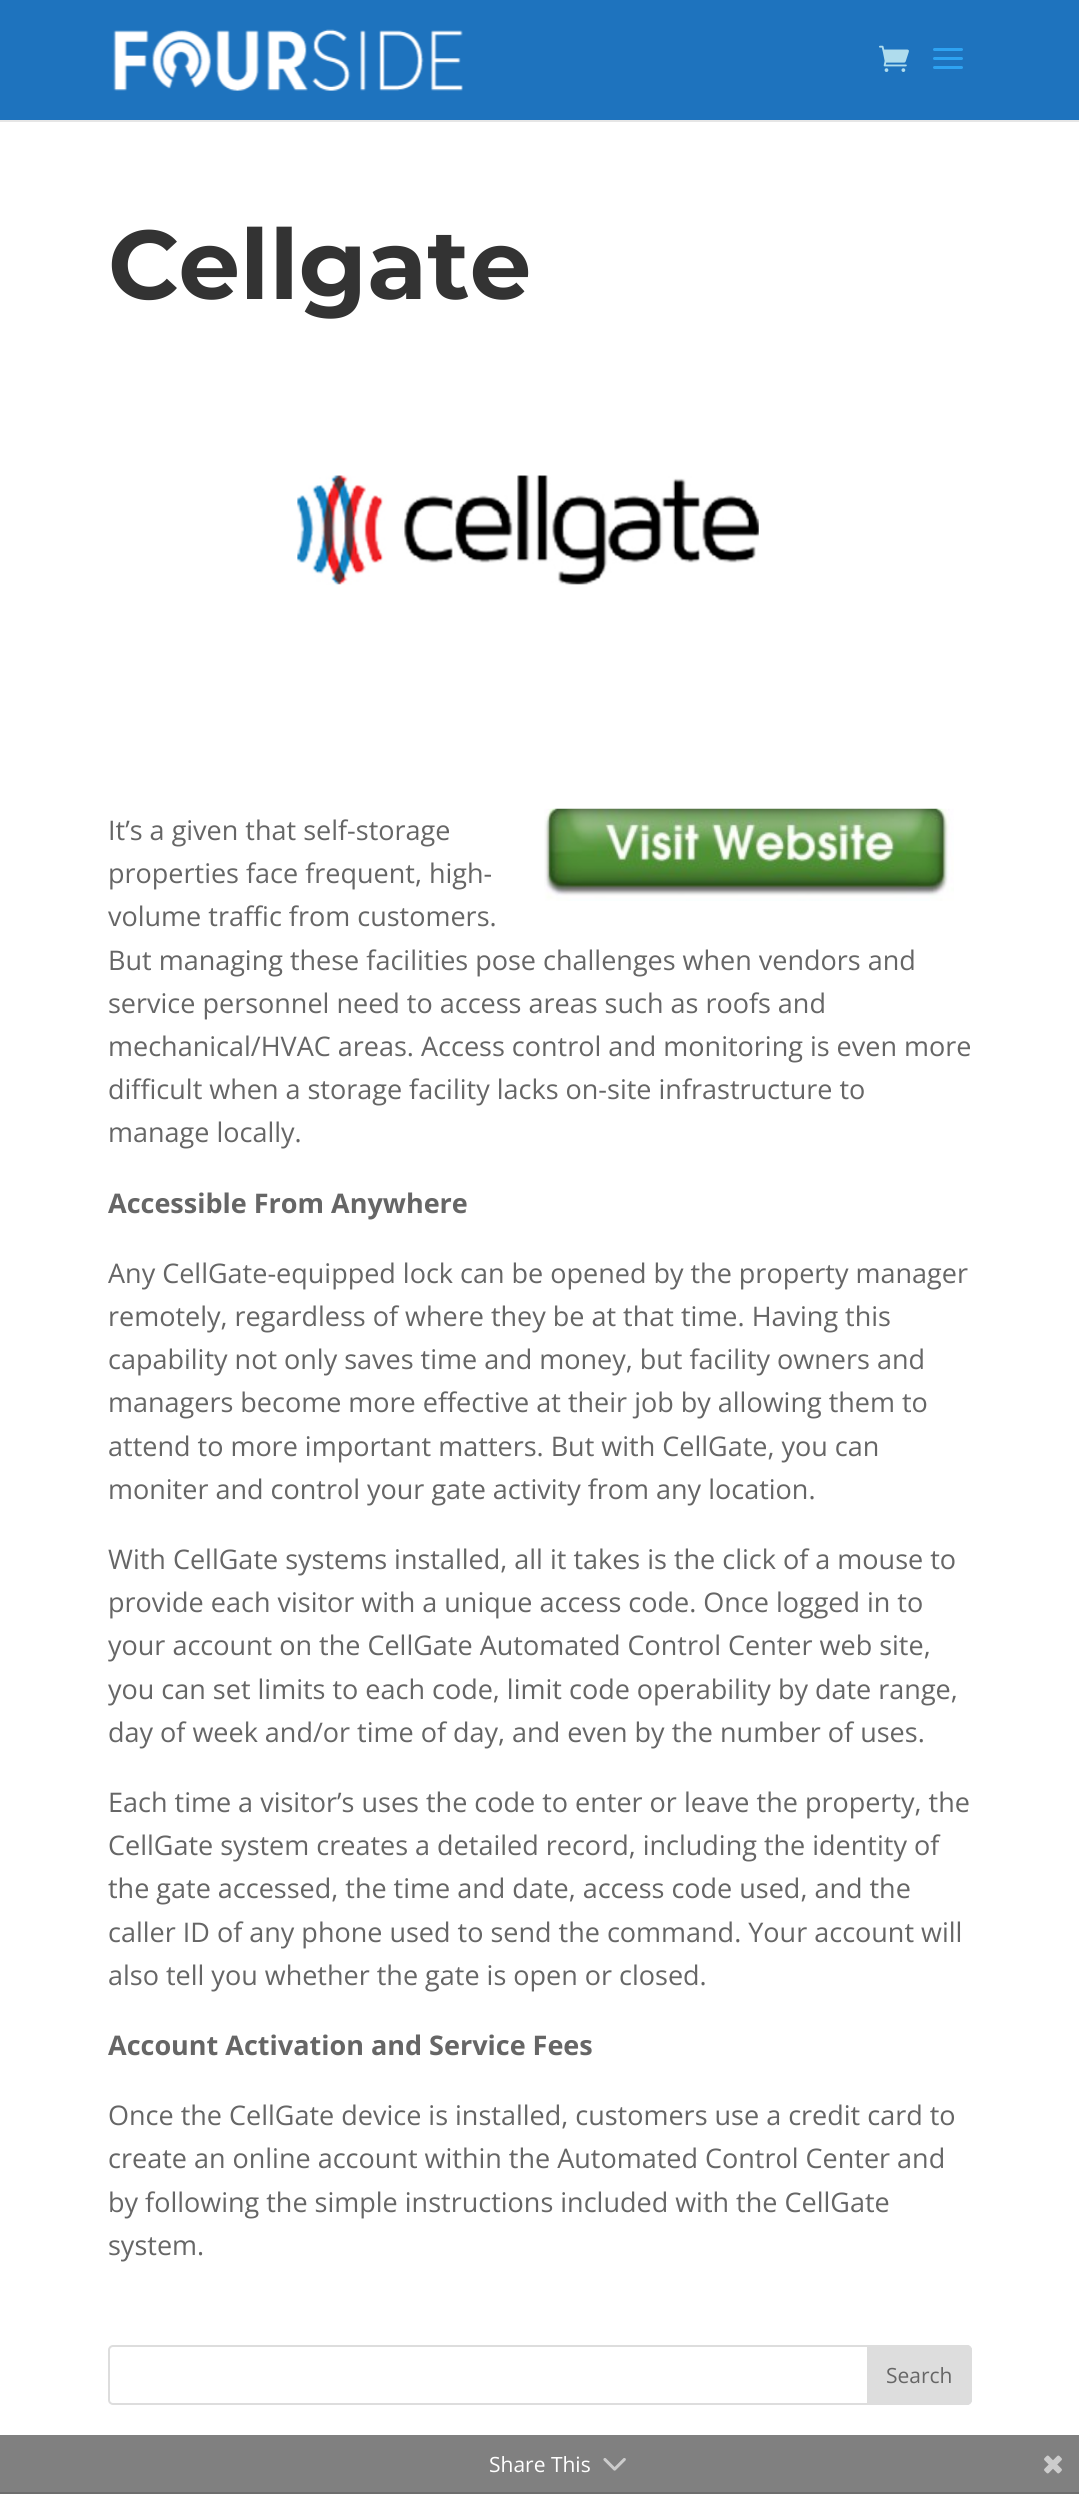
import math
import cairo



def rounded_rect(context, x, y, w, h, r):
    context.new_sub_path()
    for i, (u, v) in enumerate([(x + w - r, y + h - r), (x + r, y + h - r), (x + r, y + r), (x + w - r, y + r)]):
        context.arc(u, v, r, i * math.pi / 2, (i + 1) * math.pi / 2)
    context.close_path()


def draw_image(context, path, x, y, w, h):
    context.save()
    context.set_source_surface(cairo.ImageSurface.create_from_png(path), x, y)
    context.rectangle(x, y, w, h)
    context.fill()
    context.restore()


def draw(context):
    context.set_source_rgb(1, 1, 1)
    context.paint()
    context.set_source_rgb(128 / 255, 128 / 255, 128 / 255)
    context.rectangle(0, 2435, 1079, 57)
    context.fill()
    context.set_source_rgb(230 / 255, 230 / 255, 230 / 255)
    context.rectangle(0, 120, 1079, 2)
    context.fill()
    context.set_source_rgb(30 / 255, 115 / 255, 190 / 255)
    context.rectangle(0, 0, 1079, 120)
    context.fill()
    draw_image(context, "images/1.png", 113, 29, 350, 62)
    draw_image(context, "images/2.png", 879, 45, 30, 27)
    draw_image(context, "images/3.png", 933, 48, 30, 21)
    draw_image(context, "images/4.png", 297, 475, 462, 110)
    draw_image(context, "images/5.png", 544, 808, 410, 93)
    rounded_rect(context, 109, 2346, 862, 58, 4)
    context.set_source_rgb(221 / 255, 221 / 255, 221 / 255)
    context.stroke()
    context.new_path()
    context.move_to(868, 2346)
    context.line_to(967, 2346)
    context.curve_to(969, 2346, 971, 2348, 971, 2350)
    context.line_to(971, 2400)
    context.curve_to(971, 2402, 969, 2404, 967, 2404)
    context.line_to(868, 2404)
    context.close_path()
    context.fill_preserve()
    context.stroke()
    context.set_source_rgb(109 / 255, 109 / 255, 109 / 255)
    context.rectangle(0, 2492, 1079, 2)
    context.fill()
    draw_image(context, "images/6.png", 603, 2458, 23, 13)
    draw_image(context, "images/7.png", 1044, 2455, 18, 19)
    context.select_font_face("Montserrat", cairo.FontSlant.NORMAL, cairo.FontWeight.BOLD)
    context.set_font_size(97.5)
    context.set_source_rgb(51 / 255, 51 / 255, 51 / 255)
    context.move_to(108, 299)
    context.show_text("Cellgate")
    context.select_font_face("Open Sans")
    context.set_font_size(27)
    context.set_source_rgb(102 / 255, 102 / 255, 102 / 255)
    context.move_to(108, 840)
    context.show_text("It’s a given that self-storage")
    context.move_to(108, 883)
    context.show_text("properties face frequent, high-")
    context.move_to(108, 926)
    context.show_text("volume traffic from customers.")
    context.move_to(108, 970)
    context.show_text("But managing these facilities pose challenges when vendors and")
    context.move_to(108, 1013)
    context.show_text("service personnel need to access areas such as roofs and")
    context.move_to(108, 1056)
    context.show_text("mechanical/HVAC areas. Access control and monitoring is even more")
    context.move_to(108, 1099)
    context.show_text("difficult when a storage facility lacks on-site infrastructure to")
    context.move_to(108, 1142)
    context.show_text("manage locally.")
    context.select_font_face("Open Sans", cairo.FontSlant.NORMAL, cairo.FontWeight.BOLD)
    context.move_to(108, 1213)
    context.show_text("Accessible From Anywhere")
    context.select_font_face("Open Sans")
    context.move_to(108, 1283)
    context.show_text("Any CellGate-equipped lock can be opened by the property manager")
    context.move_to(108, 1326)
    context.show_text("remotely, regardless of where they be at that time. Having this")
    context.move_to(108, 1369)
    context.show_text("capability not only saves time and money, but facility owners and")
    context.move_to(108, 1412)
    context.show_text("managers become more effective at their job by allowing them to")
    context.move_to(108, 1456)
    context.show_text("attend to more important matters. But with CellGate, you can")
    context.move_to(108, 1499)
    context.show_text("moniter and control your gate activity from any location.")
    context.move_to(108, 1569)
    context.show_text("With CellGate systems installed, all it takes is the click of a mouse to")
    context.move_to(108, 1612)
    context.show_text("provide each visitor with a unique access code. Once logged in to")
    context.move_to(108, 1655)
    context.show_text("your account on the CellGate Automated Control Center web site,")
    context.move_to(108, 1699)
    context.show_text("you can set limits to each code, limit code operability by date range,")
    context.move_to(108, 1742)
    context.show_text("day of week and/or time of day, and even by the number of uses.")
    context.move_to(108, 1812)
    context.show_text("Each time a visitor’s uses the code to enter or leave the property, the")
    context.move_to(108, 1855)
    context.show_text("CellGate system creates a detailed record, including the identity of")
    context.move_to(108, 1898)
    context.show_text("the gate accessed, the time and date, access code used, and the")
    context.move_to(108, 1942)
    context.show_text("caller ID of any phone used to send the command. Your account will")
    context.move_to(108, 1985)
    context.show_text("also tell you whether the gate is open or closed.")
    context.select_font_face("Open Sans", cairo.FontSlant.NORMAL, cairo.FontWeight.BOLD)
    context.move_to(108, 2055)
    context.show_text("Account Activation and Service Fees")
    context.select_font_face("Open Sans")
    context.move_to(108, 2125)
    context.show_text("Once the CellGate device is installed, customers use a credit card to")
    context.move_to(108, 2168)
    context.show_text("create an online account within the Automated Control Center and")
    context.move_to(108, 2212)
    context.show_text("by following the simple instructions included with the CellGate")
    context.move_to(108, 2255)
    context.show_text("system.")
    context.set_font_size(21)
    context.move_to(886, 2383)
    context.show_text("Search")
    context.set_source_rgb(1, 1, 1)
    context.move_to(489, 2472)
    context.show_text("Share This")


surface = cairo.ImageSurface(cairo.Format.RGB24, 1079, 2494)
context = cairo.Context(surface)
options = cairo.FontOptions()
options.set_hint_metrics(cairo.HintMetrics.OFF)
options.set_hint_style(cairo.HintStyle.NONE)
context.set_font_options(options)
context.set_miter_limit(4)
draw(context)
surface.write_to_png("out.png")
